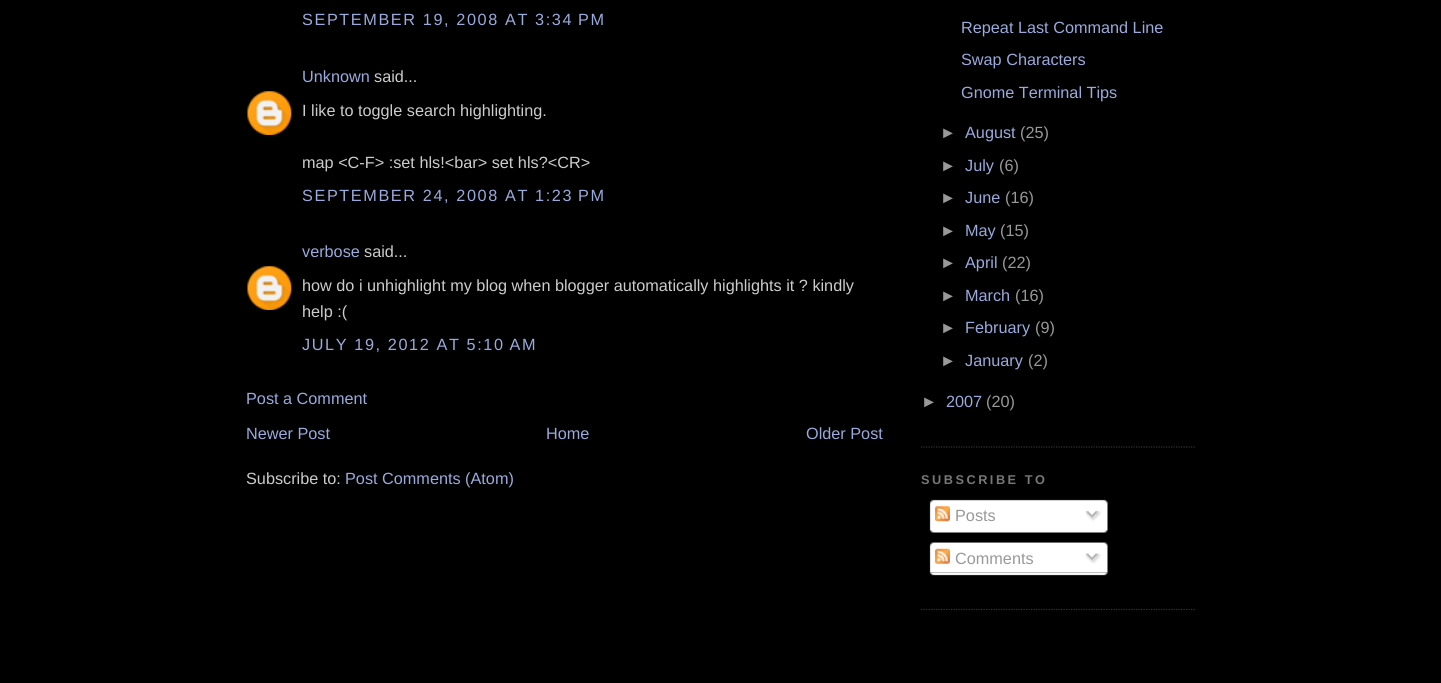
import math
import cairo



def draw_spaced(context, x, y, s, letter, word):
    context.move_to(x, y)
    for ch in s:
        context.show_text(ch)
        context.rel_move_to(letter + word * (ch == ' '), 0)


def draw_image(context, path, x, y, w, h):
    context.save()
    context.set_source_surface(cairo.ImageSurface.create_from_png(path), x, y)
    context.rectangle(x, y, w, h)
    context.fill()
    context.restore()


def draw(context):
    context.set_source_rgb(0, 0, 0)
    context.paint()
    draw_image(context, "images/1.png", 247, 91, 45, 44)
    draw_image(context, "images/1.png", 247, 266, 45, 44)
    context.new_path()
    context.move_to(921, 447)
    context.line_to(1196, 447)
    context.set_source_rgb(51 / 255, 51 / 255, 51 / 255)
    context.set_line_width(1.2)
    context.set_dash([1.25, 1.25])
    context.stroke()
    context.new_path()
    context.move_to(921, 609.5)
    context.line_to(1196, 609.5)
    context.stroke()
    draw_image(context, "images/2.png", 929, 499, 179, 31)
    draw_image(context, "images/3.png", 935, 506, 15, 16)
    draw_image(context, "images/4.png", 1085, 510, 16, 11)
    draw_image(context, "images/5.png", 929, 530, 179, 3)
    draw_image(context, "images/6.png", 929, 542, 179, 31)
    draw_image(context, "images/7.png", 935, 548, 15, 16)
    draw_image(context, "images/8.png", 1085, 553, 16, 11)
    draw_image(context, "images/9.png", 929, 572, 179, 4)
    context.select_font_face("Liberation Sans")
    context.set_font_size(16.25)
    context.set_source_rgb(153 / 255, 170 / 255, 221 / 255)
    draw_spaced(context, 302, 25, "SEPTEMBER 19, 2008 AT 3:34 PM", 1.6, 0)
    context.move_to(302, 82)
    context.show_text("Unknown")
    context.set_source_rgb(204 / 255, 204 / 255, 204 / 255)
    context.move_to(374, 82)
    context.show_text("said...")
    context.move_to(302, 116)
    context.show_text("I like to toggle search highlighting.")
    context.move_to(302, 168)
    context.show_text("map <C-F> :set hls!<bar> set hls?<CR>")
    context.set_source_rgb(153 / 255, 170 / 255, 221 / 255)
    draw_spaced(context, 302, 201, "SEPTEMBER 24, 2008 AT 1:23 PM", 1.6, 0)
    context.move_to(302, 257)
    context.show_text("verbose")
    context.set_source_rgb(204 / 255, 204 / 255, 204 / 255)
    context.move_to(364, 257)
    context.show_text("said...")
    context.move_to(302, 291)
    context.show_text("how do i unhighlight my blog when blogger automatically highlights it ? kindly")
    context.move_to(302, 317)
    context.show_text("help :(")
    context.set_source_rgb(153 / 255, 170 / 255, 221 / 255)
    draw_spaced(context, 302, 350, "JULY 19, 2012 AT 5:10 AM", 1.6, 0)
    context.move_to(246, 404)
    context.show_text("Post a Comment")
    context.move_to(246, 439)
    context.show_text("Newer Post")
    context.move_to(546, 439)
    context.show_text("Home")
    context.move_to(806, 439)
    context.show_text("Older Post")
    context.set_source_rgb(204 / 255, 204 / 255, 204 / 255)
    context.move_to(246, 484)
    context.show_text("Subscribe to:")
    context.set_source_rgb(153 / 255, 170 / 255, 221 / 255)
    context.move_to(345, 484)
    context.show_text("Post Comments (Atom)")
    context.move_to(961, 33)
    context.show_text("Repeat Last Command Line")
    context.move_to(961, 65)
    context.show_text("Swap Characters")
    context.move_to(961, 98)
    context.show_text("Gnome Terminal Tips")
    context.set_source_rgb(153 / 255, 153 / 255, 153 / 255)
    context.move_to(940, 138)
    context.show_text("►")
    context.set_source_rgb(153 / 255, 170 / 255, 221 / 255)
    context.move_to(965, 138)
    context.show_text("August")
    context.set_source_rgb(153 / 255, 153 / 255, 153 / 255)
    context.move_to(1020, 138)
    context.show_text("(25)")
    context.move_to(940, 171)
    context.show_text("►")
    context.set_source_rgb(153 / 255, 170 / 255, 221 / 255)
    context.move_to(965, 171)
    context.show_text("July")
    context.set_source_rgb(153 / 255, 153 / 255, 153 / 255)
    context.move_to(999, 171)
    context.show_text("(6)")
    context.move_to(940, 203)
    context.show_text("►")
    context.set_source_rgb(153 / 255, 170 / 255, 221 / 255)
    context.move_to(965, 203)
    context.show_text("June")
    context.set_source_rgb(153 / 255, 153 / 255, 153 / 255)
    context.move_to(1005, 203)
    context.show_text("(16)")
    context.move_to(940, 236)
    context.show_text("►")
    context.set_source_rgb(153 / 255, 170 / 255, 221 / 255)
    context.move_to(965, 236)
    context.show_text("May")
    context.set_source_rgb(153 / 255, 153 / 255, 153 / 255)
    context.move_to(1000, 236)
    context.show_text("(15)")
    context.move_to(940, 268)
    context.show_text("►")
    context.set_source_rgb(153 / 255, 170 / 255, 221 / 255)
    context.move_to(965, 268)
    context.show_text("April")
    context.set_source_rgb(153 / 255, 153 / 255, 153 / 255)
    context.move_to(1002, 268)
    context.show_text("(22)")
    context.move_to(940, 301)
    context.show_text("►")
    context.set_source_rgb(153 / 255, 170 / 255, 221 / 255)
    context.move_to(965, 301)
    context.show_text("March")
    context.set_source_rgb(153 / 255, 153 / 255, 153 / 255)
    context.move_to(1015, 301)
    context.show_text("(16)")
    context.move_to(940, 333)
    context.show_text("►")
    context.set_source_rgb(153 / 255, 170 / 255, 221 / 255)
    context.move_to(965, 333)
    context.show_text("February")
    context.set_source_rgb(153 / 255, 153 / 255, 153 / 255)
    context.move_to(1035, 333)
    context.show_text("(9)")
    context.move_to(940, 366)
    context.show_text("►")
    context.set_source_rgb(153 / 255, 170 / 255, 221 / 255)
    context.move_to(965, 366)
    context.show_text("January")
    context.set_source_rgb(153 / 255, 153 / 255, 153 / 255)
    context.move_to(1028, 366)
    context.show_text("(2)")
    context.move_to(921, 407)
    context.show_text("►")
    context.set_source_rgb(153 / 255, 170 / 255, 221 / 255)
    context.move_to(946, 407)
    context.show_text("2007")
    context.set_source_rgb(153 / 255, 153 / 255, 153 / 255)
    context.move_to(986, 407)
    context.show_text("(20)")
    context.select_font_face("Liberation Sans", cairo.FontSlant.NORMAL, cairo.FontWeight.BOLD)
    context.set_font_size(12.75)
    context.set_source_rgb(119 / 255, 119 / 255, 119 / 255)
    draw_spaced(context, 921, 484, "SUBSCRIBE TO", 2.5, 0)
    context.select_font_face("Liberation Sans")
    context.set_font_size(16.25)
    context.set_source_rgb(153 / 255, 153 / 255, 153 / 255)
    context.move_to(955, 521)
    context.show_text("Posts")
    context.move_to(955, 564)
    context.show_text("Comments")


surface = cairo.ImageSurface(cairo.Format.RGB24, 1441, 683)
context = cairo.Context(surface)
options = cairo.FontOptions()
options.set_hint_metrics(cairo.HintMetrics.OFF)
options.set_hint_style(cairo.HintStyle.NONE)
context.set_font_options(options)
context.set_miter_limit(4)
draw(context)
surface.write_to_png("out.png")
